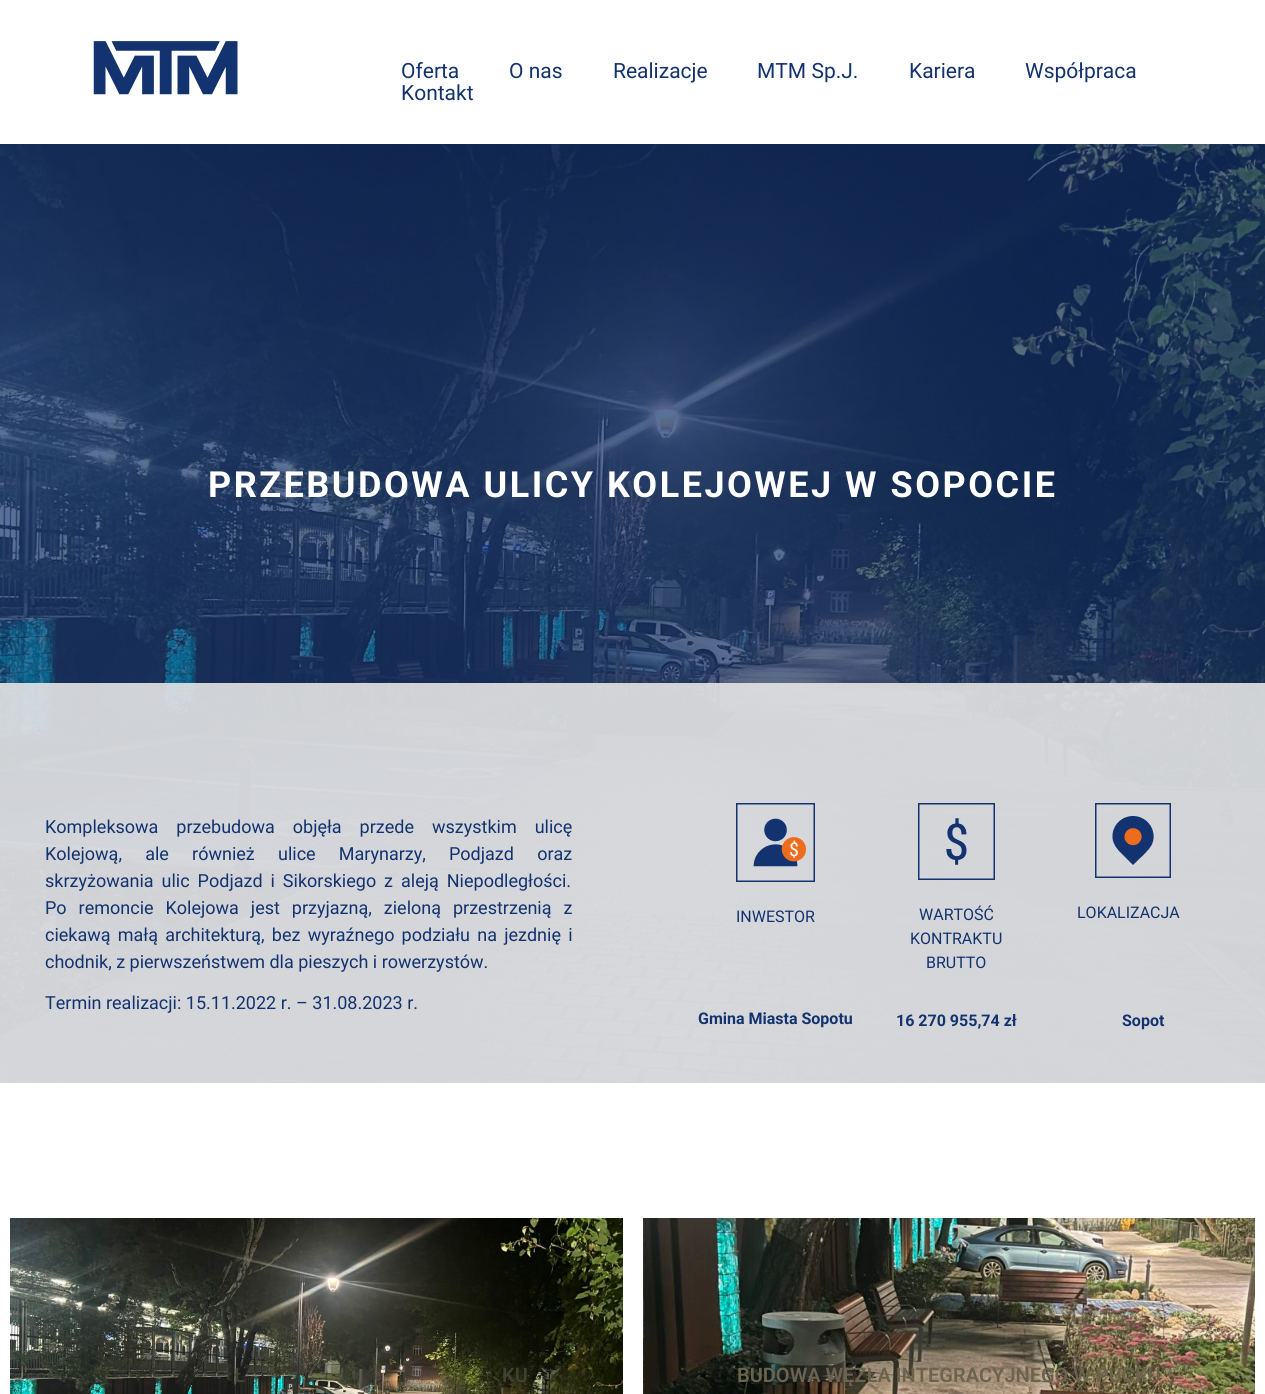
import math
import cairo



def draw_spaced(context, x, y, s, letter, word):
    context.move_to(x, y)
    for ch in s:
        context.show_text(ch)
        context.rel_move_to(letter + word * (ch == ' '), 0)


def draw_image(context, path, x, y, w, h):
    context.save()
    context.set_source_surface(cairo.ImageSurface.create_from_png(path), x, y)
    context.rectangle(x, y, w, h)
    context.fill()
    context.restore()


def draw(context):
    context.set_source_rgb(1, 1, 1)
    context.paint()
    draw_image(context, "images/1.png", 93, 41, 145, 54)
    draw_image(context, "images/2.png", 0, 144, 1265, 939)
    context.set_source_rgba(229 / 255, 229 / 255, 229 / 255, 0.9)
    context.rectangle(0, 683, 1265, 400)
    context.fill()
    draw_image(context, "images/3.png", 736, 803, 79, 79)
    draw_image(context, "images/4.png", 918, 803, 77, 77)
    draw_image(context, "images/5.png", 1095, 803, 76, 75)
    draw_image(context, "images/6.png", 10, 1218, 613, 176)
    draw_image(context, "images/7.png", 643, 1218, 612, 176)
    context.select_font_face("Roboto")
    context.set_font_size(21)
    context.set_source_rgb(19 / 255, 51 / 255, 112 / 255)
    context.move_to(401, 78)
    context.show_text("Oferta")
    context.move_to(509, 78)
    context.show_text("O nas")
    context.move_to(613, 78)
    context.show_text("Realizacje")
    context.move_to(757, 78)
    context.show_text("MTM Sp.J.")
    context.move_to(909, 78)
    context.show_text("Kariera")
    context.move_to(1025, 78)
    context.show_text("Współpraca")
    context.move_to(401, 100)
    context.show_text("Kontakt")
    context.select_font_face("Roboto", cairo.FontSlant.NORMAL, cairo.FontWeight.BOLD)
    context.set_font_size(36)
    context.set_source_rgb(1, 1, 1)
    draw_spaced(context, 208, 497, "PRZEBUDOWA ULICY KOLEJOWEJ W SOPOCIE", 2.5, 0)
    context.select_font_face("Roboto")
    context.set_font_size(18)
    context.set_source_rgb(19 / 255, 51 / 255, 112 / 255)
    draw_spaced(context, 45, 833, "Kompleksowa przebudowa objęła przede wszystkim ulicę", 0, 13.5)
    draw_spaced(context, 45, 860, "Kolejową, ale również ulice Marynarzy, Podjazd oraz", 0, 18.75)
    draw_spaced(context, 45, 887, "skrzyżowania ulic Podjazd i Sikorskiego z aleją Niepodległości.", 0, 3.5)
    draw_spaced(context, 45, 914, "Po remoncie Kolejowa jest przyjazną, zieloną przestrzenią z", 0, 7.5)
    draw_spaced(context, 45, 941, "ciekawą małą architekturą, bez wyraźnego podziału na jezdnię i", 0, 2.75)
    context.move_to(45, 968)
    context.show_text("chodnik, z pierwszeństwem dla pieszych i rowerzystów.")
    context.move_to(45, 1009)
    context.show_text("Termin realizacji: 15.11.2022 r. – 31.08.2023 r.")
    context.set_font_size(16)
    context.move_to(736, 922)
    context.show_text("INWESTOR")
    context.select_font_face("Roboto", cairo.FontSlant.NORMAL, cairo.FontWeight.BOLD)
    context.move_to(698, 1024)
    context.show_text("Gmina Miasta Sopotu")
    context.select_font_face("Roboto")
    context.move_to(919, 920)
    context.show_text("WARTOŚĆ")
    context.move_to(910, 944)
    context.show_text("KONTRAKTU")
    context.move_to(926, 968)
    context.show_text("BRUTTO")
    context.select_font_face("Roboto", cairo.FontSlant.NORMAL, cairo.FontWeight.BOLD)
    context.move_to(896, 1026)
    context.show_text("16 270 955,74 zł")
    context.select_font_face("Roboto")
    context.move_to(1077, 918)
    context.show_text("LOKALIZACJA")
    context.select_font_face("Roboto", cairo.FontSlant.NORMAL, cairo.FontWeight.BOLD)
    context.move_to(1122, 1026)
    context.show_text("Sopot")
    context.select_font_face("Roboto SemiBold")
    context.set_font_size(20)
    context.set_source_rgb(64 / 255, 65 / 255, 49 / 255)
    context.move_to(234, 1382)
    context.show_text("Ł")
    context.move_to(502, 1382)
    context.show_text("KU")
    context.set_source_rgb(108 / 255, 99 / 255, 79 / 255)
    context.move_to(737, 1382)
    context.show_text("BUDOWA WĘZŁA INTEGRACYJNEGO W PUCKU")


surface = cairo.ImageSurface(cairo.Format.RGB24, 1265, 1394)
context = cairo.Context(surface)
options = cairo.FontOptions()
options.set_hint_metrics(cairo.HintMetrics.OFF)
options.set_hint_style(cairo.HintStyle.NONE)
context.set_font_options(options)
context.set_miter_limit(4)
draw(context)
surface.write_to_png("out.png")
